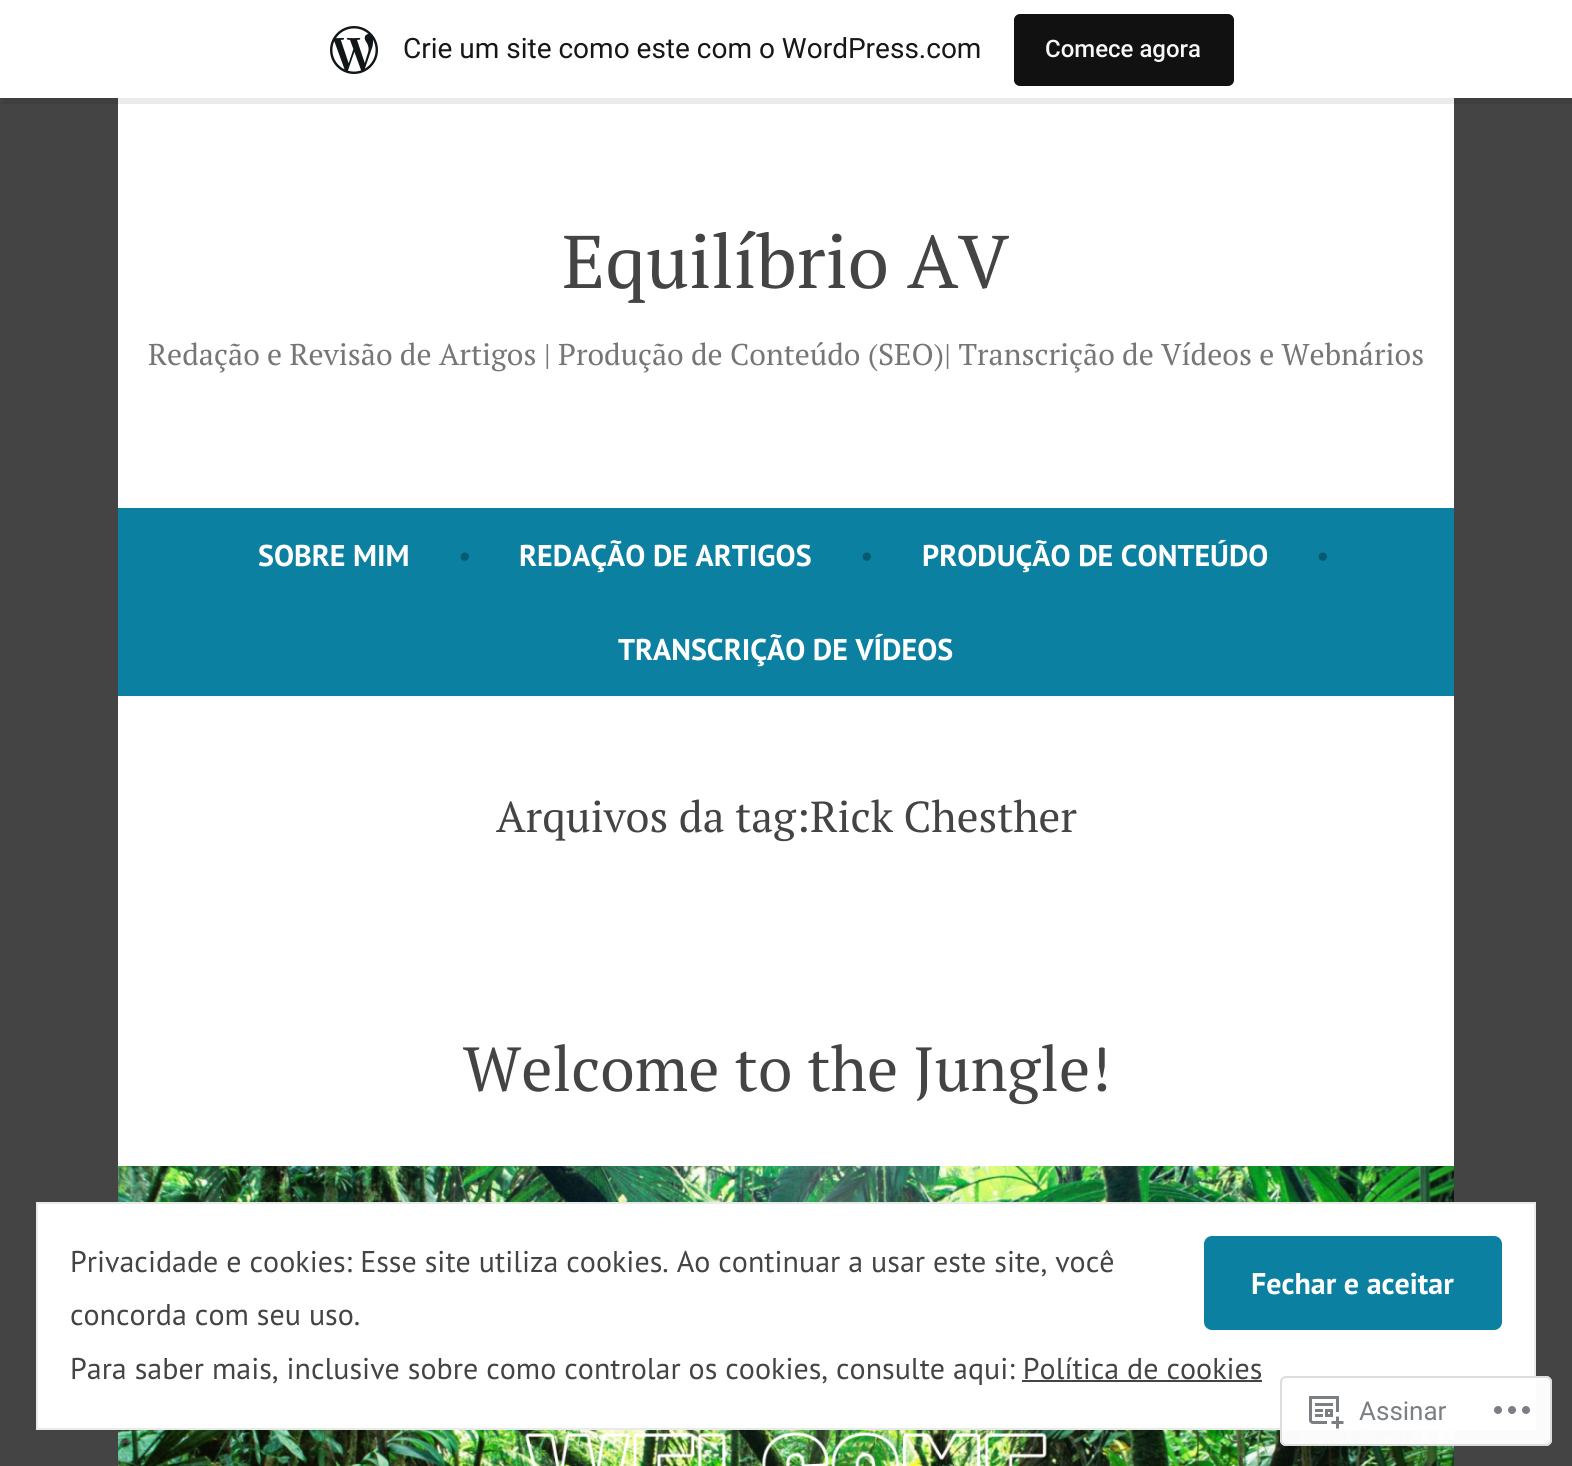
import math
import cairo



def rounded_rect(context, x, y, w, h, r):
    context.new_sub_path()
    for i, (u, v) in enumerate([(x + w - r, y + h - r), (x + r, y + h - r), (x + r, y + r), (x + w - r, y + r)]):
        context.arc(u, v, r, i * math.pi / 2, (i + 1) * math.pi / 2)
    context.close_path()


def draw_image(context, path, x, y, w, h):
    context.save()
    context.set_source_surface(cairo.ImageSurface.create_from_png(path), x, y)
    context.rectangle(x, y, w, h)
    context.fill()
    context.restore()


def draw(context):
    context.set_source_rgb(68 / 255, 68 / 255, 68 / 255)
    context.paint()
    context.set_source_rgb(1, 1, 1)
    context.rectangle(118, 98, 1336, 1068)
    context.fill()
    context.set_source_rgba(0, 0, 0, 0.08)
    context.new_path()
    context.move_to(2, 98)
    context.line_to(2, 104)
    context.line_to(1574, 104)
    context.line_to(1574, 6)
    context.line_to(1572, 6)
    context.line_to(1572, 98)
    context.close_path()
    context.fill()
    context.set_source_rgb(1, 1, 1)
    context.rectangle(0, 0, 1572, 98)
    context.fill()
    draw_image(context, "images/1.png", 330, 26, 48, 48)
    context.set_source_rgb(17 / 255, 17 / 255, 17 / 255)
    rounded_rect(context, 1014, 14, 220, 72, 6)
    context.fill()
    context.set_source_rgb(12 / 255, 128 / 255, 161 / 255)
    context.rectangle(118, 508, 1336, 188)
    context.fill()
    draw_image(context, "images/2.png", 118, 1166, 1336, 300)
    context.set_source_rgb(1, 1, 1)
    context.rectangle(37, 1203, 1498, 226)
    context.fill_preserve()
    context.set_source_rgb(234 / 255, 234 / 255, 234 / 255)
    context.stroke()
    context.set_source_rgb(12 / 255, 128 / 255, 161 / 255)
    rounded_rect(context, 1204, 1236, 298, 94, 8)
    context.fill()
    context.set_source_rgb(68 / 255, 68 / 255, 68 / 255)
    context.rectangle(1022, 1380, 240, 2)
    context.fill()
    context.set_source_rgba(1, 1, 1, 0.98)
    rounded_rect(context, 1280, 1376, 272, 70, 6)
    context.fill()
    rounded_rect(context, 1281, 1377, 270, 68, 5)
    context.set_source_rgba(220 / 255, 220 / 255, 222 / 255, 0.98)
    context.stroke()
    draw_image(context, "images/3.png", 1309, 1396, 35, 33)
    draw_image(context, "images/4.png", 1494, 1406, 36, 8)
    context.select_font_face("Roboto")
    context.set_font_size(28)
    context.set_source_rgb(23 / 255, 23 / 255, 23 / 255)
    context.move_to(403, 58)
    context.show_text("Crie um site como este com o WordPress.com")
    context.select_font_face("Roboto Medium")
    context.set_font_size(24)
    context.set_source_rgb(246 / 255, 247 / 255, 247 / 255)
    context.move_to(1045, 57)
    context.show_text("Comece agora")
    context.select_font_face("PT Serif")
    context.set_font_size(74.5)
    context.set_source_rgb(68 / 255, 68 / 255, 68 / 255)
    context.move_to(562, 288)
    context.show_text("Equilíbrio AV")
    context.set_font_size(30)
    context.set_source_rgb(118 / 255, 118 / 255, 118 / 255)
    context.move_to(148, 365)
    context.show_text("Redação e Revisão de Artigos | Produção de Conteúdo (SEO)| Transcrição de Vídeos e Webnários")
    context.select_font_face("PT Sans", cairo.FontSlant.NORMAL, cairo.FontWeight.BOLD)
    context.set_source_rgb(1, 1, 1)
    context.move_to(258, 566)
    context.show_text("SOBRE MIM")
    context.select_font_face("PT Sans")
    context.set_source_rgb(8 / 255, 90 / 255, 114 / 255)
    context.move_to(458, 566)
    context.show_text("•")
    context.select_font_face("PT Sans", cairo.FontSlant.NORMAL, cairo.FontWeight.BOLD)
    context.set_source_rgb(1, 1, 1)
    context.move_to(519, 566)
    context.show_text("REDAÇÃO DE ARTIGOS")
    context.select_font_face("PT Sans")
    context.set_source_rgb(8 / 255, 90 / 255, 114 / 255)
    context.move_to(860, 566)
    context.show_text("•")
    context.select_font_face("PT Sans", cairo.FontSlant.NORMAL, cairo.FontWeight.BOLD)
    context.set_source_rgb(1, 1, 1)
    context.move_to(922, 566)
    context.show_text("PRODUÇÃO DE CONTEÚDO")
    context.select_font_face("PT Sans")
    context.set_source_rgb(8 / 255, 90 / 255, 114 / 255)
    context.move_to(1316, 566)
    context.show_text("•")
    context.select_font_face("PT Sans", cairo.FontSlant.NORMAL, cairo.FontWeight.BOLD)
    context.set_source_rgb(1, 1, 1)
    context.move_to(618, 660)
    context.show_text("TRANSCRIÇÃO DE VÍDEOS")
    context.select_font_face("PT Serif")
    context.set_font_size(43.25)
    context.set_source_rgb(68 / 255, 68 / 255, 68 / 255)
    context.move_to(496, 832)
    context.show_text("Arquivos da tag:Rick Chesther")
    context.set_font_size(62.25)
    context.move_to(463, 1091)
    context.show_text("Welcome to the Jungle!")
    context.select_font_face("PT Sans")
    context.set_font_size(30)
    context.move_to(70, 1272)
    context.show_text("Privacidade e cookies: Esse site utiliza cookies. Ao continuar a usar este site, você")
    context.select_font_face("PT Sans", cairo.FontSlant.NORMAL, cairo.FontWeight.BOLD)
    context.set_source_rgb(1, 1, 1)
    context.move_to(1251, 1294)
    context.show_text("Fechar e aceitar")
    context.select_font_face("PT Sans")
    context.set_source_rgb(68 / 255, 68 / 255, 68 / 255)
    context.move_to(70, 1325)
    context.show_text("concorda com seu uso.")
    context.move_to(70, 1379)
    context.show_text("Para saber mais, inclusive sobre como controlar os cookies, consulte aqui: Política de cookies")
    context.select_font_face("Roboto")
    context.set_font_size(26)
    context.set_source_rgb(123 / 255, 127 / 255, 133 / 255)
    context.move_to(1359, 1420)
    context.show_text("Assinar")


surface = cairo.ImageSurface(cairo.Format.RGB24, 1572, 1466)
context = cairo.Context(surface)
options = cairo.FontOptions()
options.set_hint_metrics(cairo.HintMetrics.OFF)
options.set_hint_style(cairo.HintStyle.NONE)
context.set_font_options(options)
context.set_miter_limit(4)
draw(context)
surface.write_to_png("out.png")
